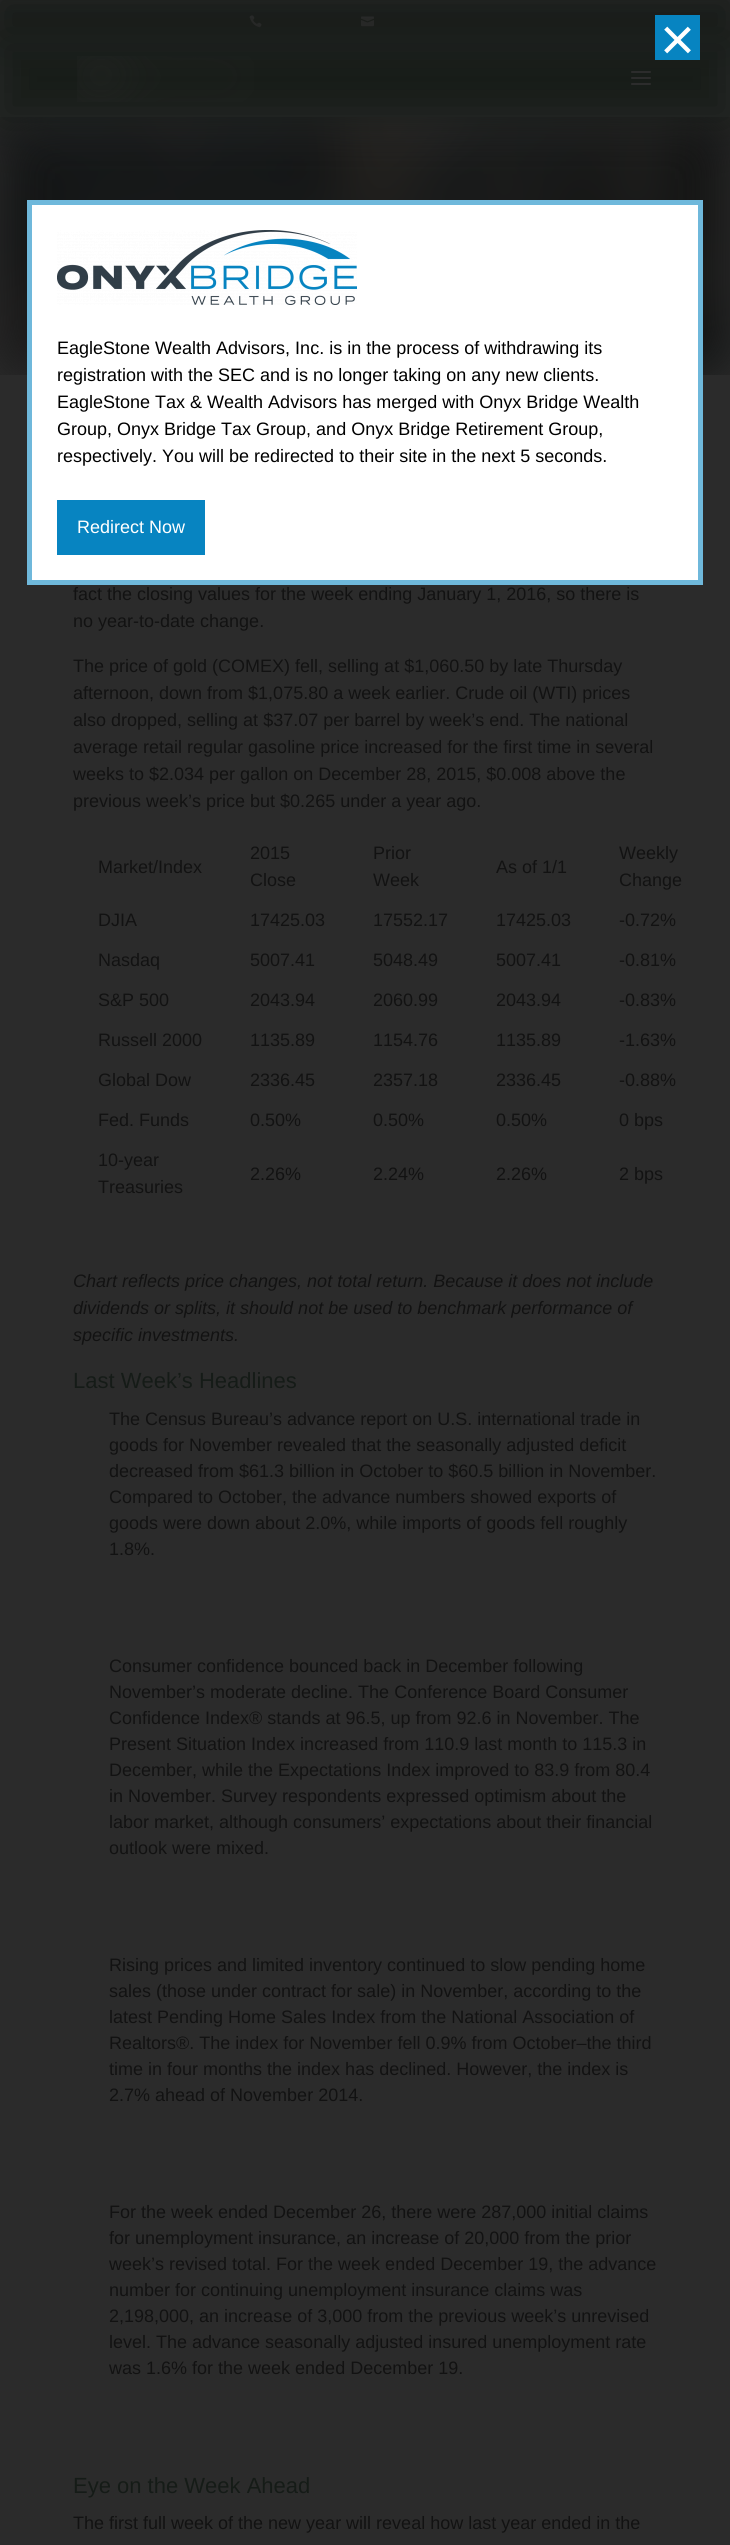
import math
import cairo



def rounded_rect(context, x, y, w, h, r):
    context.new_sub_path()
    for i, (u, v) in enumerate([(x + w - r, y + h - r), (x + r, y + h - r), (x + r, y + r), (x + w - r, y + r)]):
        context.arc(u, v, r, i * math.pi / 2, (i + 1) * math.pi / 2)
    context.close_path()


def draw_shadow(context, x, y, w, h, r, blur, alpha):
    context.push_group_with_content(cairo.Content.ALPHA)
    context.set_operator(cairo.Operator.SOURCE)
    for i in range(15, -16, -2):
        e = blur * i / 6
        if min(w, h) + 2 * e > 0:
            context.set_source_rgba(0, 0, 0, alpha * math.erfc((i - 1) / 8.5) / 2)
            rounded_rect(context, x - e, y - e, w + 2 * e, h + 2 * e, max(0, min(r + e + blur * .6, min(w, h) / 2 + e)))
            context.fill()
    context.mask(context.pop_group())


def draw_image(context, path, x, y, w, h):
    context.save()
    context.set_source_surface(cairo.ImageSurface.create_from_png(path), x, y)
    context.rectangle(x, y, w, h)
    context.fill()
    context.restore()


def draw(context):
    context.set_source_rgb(43 / 255, 43 / 255, 43 / 255)
    context.paint()
    context.set_source_rgb(21 / 255, 25 / 255, 22 / 255)
    draw_shadow(context, 0, 0, 730, 39, 0, 25, 1)
    draw_image(context, "images/2.png", 249, 15, 13, 13)
    draw_image(context, "images/3.png", 361, 16, 13, 11)
    context.set_source_rgb(22 / 255, 27 / 255, 23 / 255)
    draw_shadow(context, 0, 39, 730, 80, 0, 25, 1)
    context.set_source_rgb(7 / 255, 132 / 255, 193 / 255)
    context.rectangle(655, 15, 45, 45)
    context.fill()
    draw_image(context, "images/6.png", 0, 117, 730, 258)
    context.set_source_rgb(1, 1, 1)
    context.rectangle(29.5, 202.5, 671, 380)
    context.fill_preserve()
    context.set_source_rgb(111 / 255, 184 / 255, 219 / 255)
    context.set_line_width(5)
    context.stroke()
    draw_image(context, "images/1.png", 57, 230, 300, 75)
    context.set_source_rgb(7 / 255, 132 / 255, 193 / 255)
    context.rectangle(57, 500, 148, 55)
    context.fill()
    draw_image(context, "images/4.png", 77, 56, 177, 46)
    draw_image(context, "images/5.png", 631, 71, 20, 14)
    context.select_font_face("Liberation Sans")
    context.set_font_size(60)
    context.set_source_rgb(1, 1, 1)
    context.move_to(660, 60)
    context.show_text("×")
    context.set_font_size(18)
    context.set_source_rgb(0, 0, 0)
    context.move_to(57, 354)
    context.show_text("EagleStone Wealth Advisors, Inc. is in the process of withdrawing its")
    context.move_to(57, 381)
    context.show_text("registration with the SEC and is no longer taking on any new clients.")
    context.move_to(57, 408)
    context.show_text("EagleStone Tax & Wealth Advisors has merged with Onyx Bridge Wealth")
    context.move_to(57, 435)
    context.show_text("Group, Onyx Bridge Tax Group, and Onyx Bridge Retirement Group,")
    context.move_to(57, 462)
    context.show_text("respectively. You will be redirected to their site in the next 5 seconds.")
    context.set_source_rgb(1, 1, 1)
    context.move_to(77, 533)
    context.show_text("Redirect Now")
    context.set_source_rgb(18 / 255, 18 / 255, 18 / 255)
    context.move_to(73, 600)
    context.show_text("fact the closing values for the week ending January 1, 2016, so there is")
    context.move_to(73, 627)
    context.show_text("no year-to-date change.")
    context.move_to(73, 672)
    context.show_text("The price of gold (COMEX) fell, selling at $1,060.50 by late Thursday")
    context.move_to(73, 699)
    context.show_text("afternoon, down from $1,075.80 a week earlier. Crude oil (WTI) prices")
    context.move_to(73, 726)
    context.show_text("also dropped, selling at $37.07 per barrel by week’s end. The national")
    context.move_to(73, 753)
    context.show_text("average retail regular gasoline price increased for the first time in several")
    context.move_to(73, 780)
    context.show_text("weeks to $2.034 per gallon on December 28, 2015, $0.008 above the")
    context.move_to(73, 807)
    context.show_text("previous week’s price but $0.265 under a year ago.")
    context.move_to(98, 873)
    context.show_text("Market/Index")
    context.move_to(250, 859)
    context.show_text("2015")
    context.move_to(250, 886)
    context.show_text("Close")
    context.move_to(373, 859)
    context.show_text("Prior")
    context.move_to(373, 886)
    context.show_text("Week")
    context.move_to(496, 873)
    context.show_text("As of 1/1")
    context.move_to(619, 859)
    context.show_text("Weekly")
    context.move_to(619, 886)
    context.show_text("Change")
    context.move_to(98, 926)
    context.show_text("DJIA")
    context.move_to(250, 926)
    context.show_text("17425.03")
    context.move_to(373, 926)
    context.show_text("17552.17")
    context.move_to(496, 926)
    context.show_text("17425.03")
    context.move_to(619, 926)
    context.show_text("-0.72%")
    context.move_to(98, 966)
    context.show_text("Nasdaq")
    context.move_to(250, 966)
    context.show_text("5007.41")
    context.move_to(373, 966)
    context.show_text("5048.49")
    context.move_to(496, 966)
    context.show_text("5007.41")
    context.move_to(619, 966)
    context.show_text("-0.81%")
    context.move_to(98, 1006)
    context.show_text("S&P 500")
    context.move_to(250, 1006)
    context.show_text("2043.94")
    context.move_to(373, 1006)
    context.show_text("2060.99")
    context.move_to(496, 1006)
    context.show_text("2043.94")
    context.move_to(619, 1006)
    context.show_text("-0.83%")
    context.move_to(98, 1046)
    context.show_text("Russell 2000")
    context.move_to(250, 1046)
    context.show_text("1135.89")
    context.move_to(373, 1046)
    context.show_text("1154.76")
    context.move_to(496, 1046)
    context.show_text("1135.89")
    context.move_to(619, 1046)
    context.show_text("-1.63%")
    context.move_to(98, 1086)
    context.show_text("Global Dow")
    context.move_to(250, 1086)
    context.show_text("2336.45")
    context.move_to(373, 1086)
    context.show_text("2357.18")
    context.move_to(496, 1086)
    context.show_text("2336.45")
    context.move_to(619, 1086)
    context.show_text("-0.88%")
    context.move_to(98, 1126)
    context.show_text("Fed. Funds")
    context.move_to(250, 1126)
    context.show_text("0.50%")
    context.move_to(373, 1126)
    context.show_text("0.50%")
    context.move_to(496, 1126)
    context.show_text("0.50%")
    context.move_to(619, 1126)
    context.show_text("0 bps")
    context.move_to(98, 1166)
    context.show_text("10-year")
    context.move_to(98, 1193)
    context.show_text("Treasuries")
    context.move_to(250, 1180)
    context.show_text("2.26%")
    context.move_to(373, 1180)
    context.show_text("2.24%")
    context.move_to(496, 1180)
    context.show_text("2.26%")
    context.move_to(619, 1180)
    context.show_text("2 bps")
    context.select_font_face("Liberation Sans", cairo.FontSlant.ITALIC)
    context.move_to(73, 1287)
    context.show_text("Chart reflects price changes, not total return. Because it does not include")
    context.move_to(73, 1314)
    context.show_text("dividends or splits, it should not be used to benchmark performance of")
    context.move_to(73, 1341)
    context.show_text("specific investments.")
    context.select_font_face("Liberation Sans")
    context.set_font_size(22)
    context.set_source_rgb(21 / 255, 27 / 255, 23 / 255)
    context.move_to(73, 1388)
    context.show_text("Last Week’s Headlines")
    context.set_font_size(18)
    context.set_source_rgb(18 / 255, 18 / 255, 18 / 255)
    context.move_to(109, 1425)
    context.show_text("The Census Bureau’s advance report on U.S. international trade in")
    context.move_to(109, 1451)
    context.show_text("goods for November revealed that the seasonally adjusted deficit")
    context.move_to(109, 1477)
    context.show_text("decreased from $61.3 billion in October to $60.5 billion in November.")
    context.move_to(109, 1503)
    context.show_text("Compared to October, the advance numbers showed exports of")
    context.move_to(109, 1529)
    context.show_text("goods were down about 2.0%, while imports of goods fell roughly")
    context.move_to(109, 1555)
    context.show_text("1.8%.")
    context.move_to(109, 1672)
    context.show_text("Consumer confidence bounced back in December following")
    context.move_to(109, 1698)
    context.show_text("November’s moderate decline. The Conference Board Consumer")
    context.move_to(109, 1724)
    context.show_text("Confidence Index® stands at 96.5, up from 92.6 in November. The")
    context.move_to(109, 1750)
    context.show_text("Present Situation Index increased from 110.9 last month to 115.3 in")
    context.move_to(109, 1776)
    context.show_text("December, while the Expectations Index improved to 83.9 from 80.4")
    context.move_to(109, 1802)
    context.show_text("in November. Survey respondents expressed optimism about the")
    context.move_to(109, 1828)
    context.show_text("labor market, although consumers’ expectations about their financial")
    context.move_to(109, 1854)
    context.show_text("outlook were mixed.")
    context.move_to(109, 1971)
    context.show_text("Rising prices and limited inventory continued to slow pending home")
    context.move_to(109, 1997)
    context.show_text("sales (those under contract for sale) in November, according to the")
    context.move_to(109, 2023)
    context.show_text("latest Pending Home Sales Index from the National Association of")
    context.move_to(109, 2049)
    context.show_text("Realtors®. The index for November fell 0.9% from October–the third")
    context.move_to(109, 2075)
    context.show_text("time in four months the index has declined. However, the index is")
    context.move_to(109, 2101)
    context.show_text("2.7% ahead of November 2014.")
    context.move_to(109, 2218)
    context.show_text("For the week ended December 26, there were 287,000 initial claims")
    context.move_to(109, 2244)
    context.show_text("for unemployment insurance, an increase of 20,000 from the prior")
    context.move_to(109, 2270)
    context.show_text("week’s revised total. For the week ended December 19, the advance")
    context.move_to(109, 2296)
    context.show_text("number for continuing unemployment insurance claims was")
    context.move_to(109, 2322)
    context.show_text("2,198,000, an increase of 3,000 from the previous week’s unrevised")
    context.move_to(109, 2348)
    context.show_text("level. The advance seasonally adjusted insured unemployment rate")
    context.move_to(109, 2374)
    context.show_text("was 1.6% for the week ended December 19.")
    context.set_font_size(22)
    context.set_source_rgb(21 / 255, 27 / 255, 23 / 255)
    context.move_to(73, 2493)
    context.show_text("Eye on the Week Ahead")
    context.set_font_size(18)
    context.set_source_rgb(18 / 255, 18 / 255, 18 / 255)
    context.move_to(73, 2529)
    context.show_text("The first full week of the new year will reveal how last year ended in the")


surface = cairo.ImageSurface(cairo.Format.RGB24, 730, 2545)
context = cairo.Context(surface)
options = cairo.FontOptions()
options.set_hint_metrics(cairo.HintMetrics.OFF)
options.set_hint_style(cairo.HintStyle.NONE)
context.set_font_options(options)
context.set_miter_limit(4)
draw(context)
surface.write_to_png("out.png")
